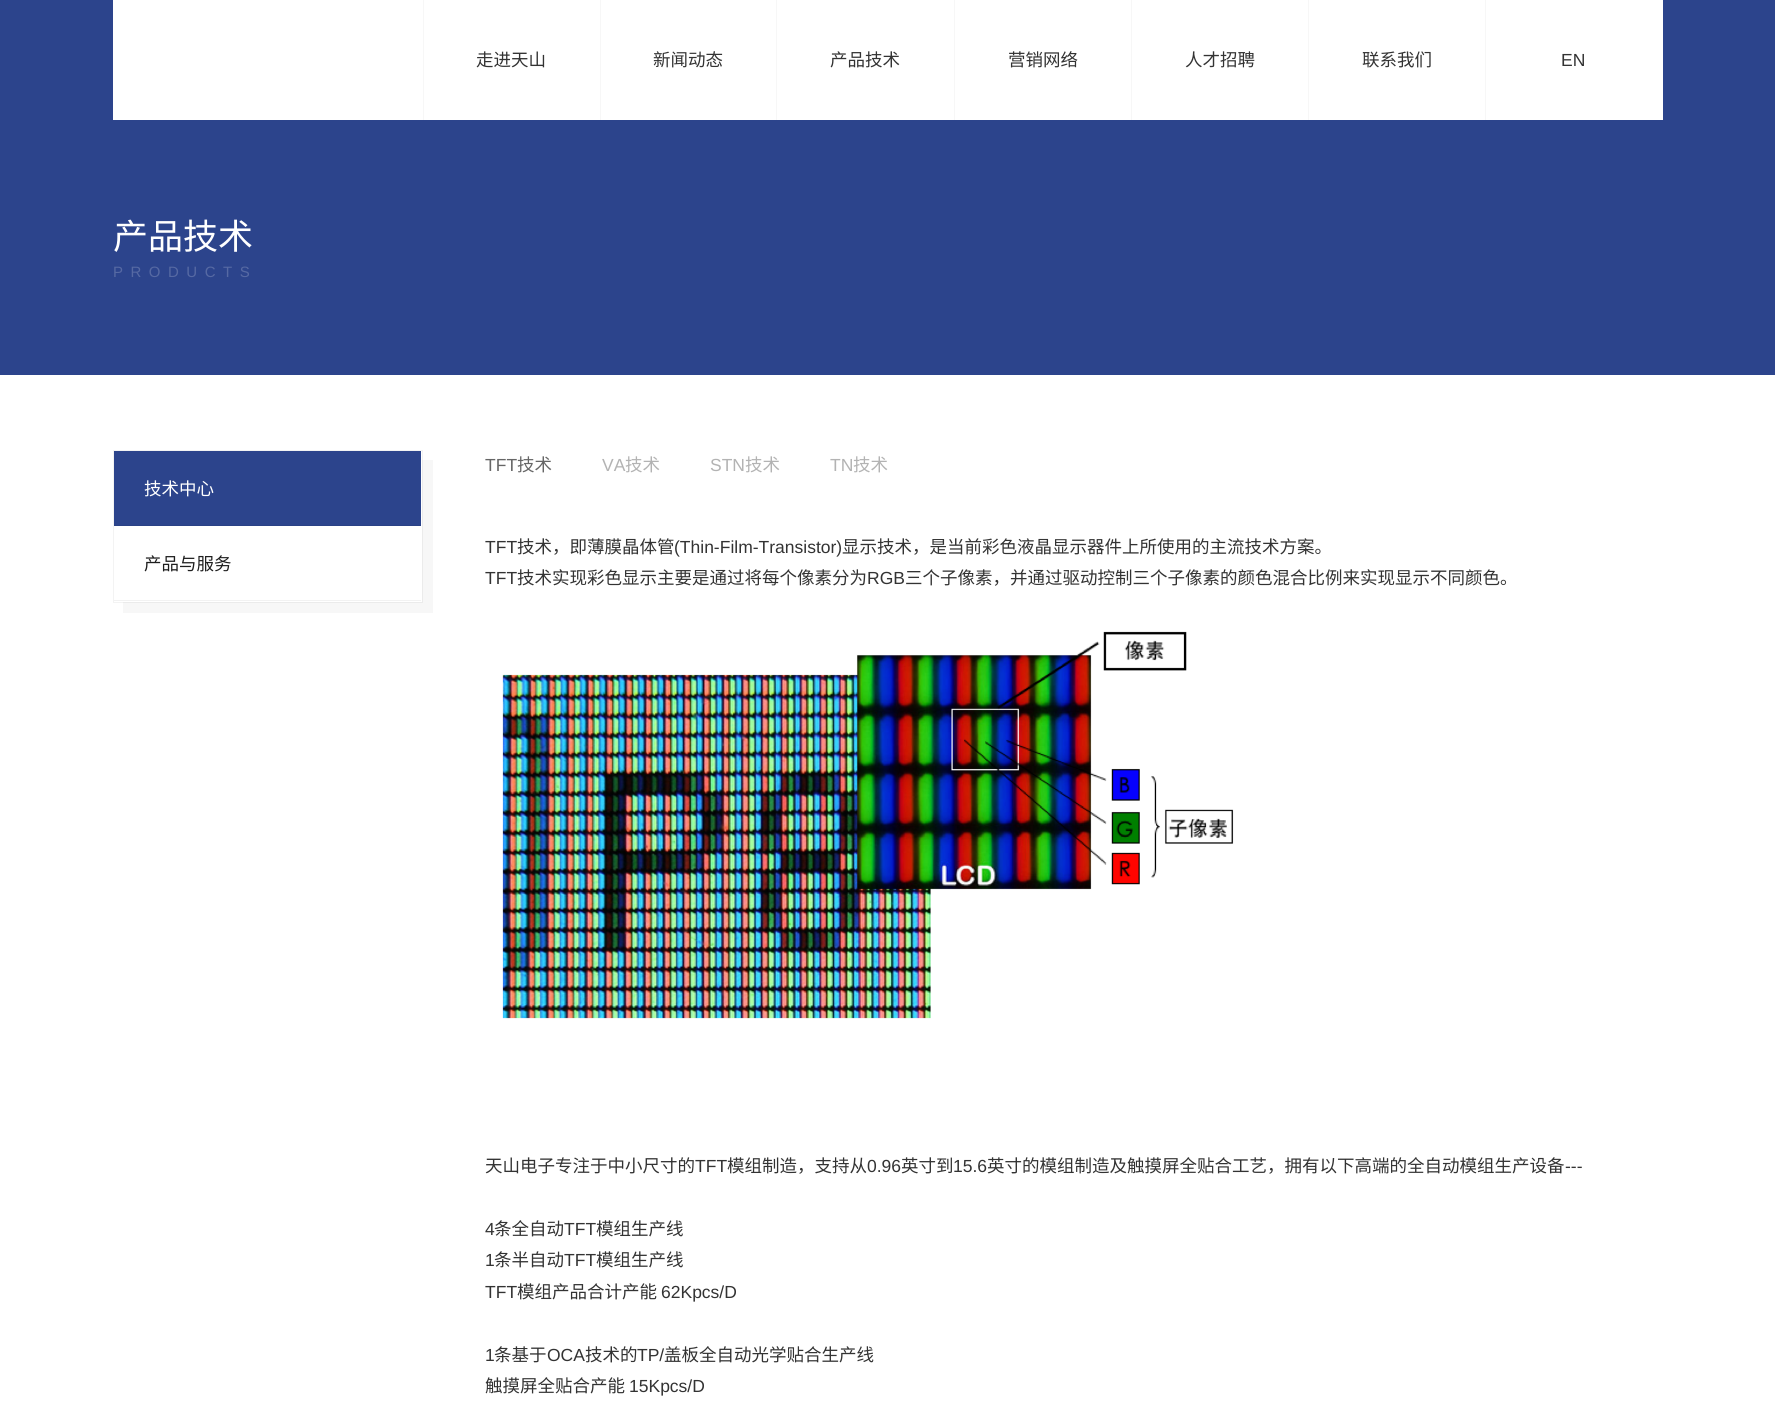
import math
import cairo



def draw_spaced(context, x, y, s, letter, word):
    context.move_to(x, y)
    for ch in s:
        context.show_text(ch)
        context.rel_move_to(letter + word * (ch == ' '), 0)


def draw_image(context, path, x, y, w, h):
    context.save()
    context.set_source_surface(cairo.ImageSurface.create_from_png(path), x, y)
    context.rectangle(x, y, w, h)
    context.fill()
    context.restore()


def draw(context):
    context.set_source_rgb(1, 1, 1)
    context.paint()
    context.set_source_rgb(44 / 255, 68 / 255, 140 / 255)
    context.rectangle(0, 0, 1775, 375)
    context.fill()
    context.set_source_rgb(1, 1, 1)
    context.rectangle(113, 0, 1550, 120)
    context.fill()
    context.set_source_rgb(247 / 255, 247 / 255, 247 / 255)
    context.rectangle(423, 0, 1, 120)
    context.fill()
    context.rectangle(600, 0, 1, 120)
    context.fill()
    context.rectangle(776, 0, 1, 120)
    context.fill()
    context.rectangle(954, 0, 1, 120)
    context.fill()
    context.rectangle(1131, 0, 1, 120)
    context.fill()
    context.rectangle(1308, 0, 1, 120)
    context.fill()
    context.rectangle(1485, 0, 1, 120)
    context.fill()
    context.new_path()
    context.move_to(123, 602)
    context.line_to(123, 613)
    context.line_to(433, 613)
    context.line_to(433, 460)
    context.line_to(422, 460)
    context.line_to(422, 602)
    context.close_path()
    context.fill()
    context.rectangle(113.5, 450.5, 309, 152)
    context.set_source_rgba(0, 0, 0, 0.05)
    context.set_line_width(1)
    context.stroke()
    context.set_source_rgb(44 / 255, 68 / 255, 140 / 255)
    context.rectangle(114, 451, 307, 74)
    context.fill()
    context.set_source_rgb(42 / 255, 65 / 255, 133 / 255)
    context.rectangle(114, 525, 307, 1)
    context.fill()
    context.set_source_rgb(242 / 255, 242 / 255, 242 / 255)
    context.rectangle(114, 600, 307, 1)
    context.fill()
    draw_image(context, "images/1.png", 502, 631, 732, 388)
    context.select_font_face("Noto Sans CJK SC")
    context.set_font_size(17.5)
    context.set_source_rgb(51 / 255, 51 / 255, 51 / 255)
    context.move_to(476, 66)
    context.show_text("走进天山")
    context.move_to(653, 66)
    context.show_text("新闻动态")
    context.move_to(830, 66)
    context.show_text("产品技术")
    context.move_to(1008, 66)
    context.show_text("营销网络")
    context.move_to(1185, 66)
    context.show_text("人才招聘")
    context.move_to(1362, 66)
    context.show_text("联系我们")
    context.select_font_face("Liberation Sans")
    context.move_to(1561, 66)
    context.show_text("EN")
    context.select_font_face("Noto Sans CJK SC")
    context.set_font_size(35)
    context.set_source_rgb(1, 1, 1)
    context.move_to(113, 249)
    context.show_text("产品技术")
    context.select_font_face("Liberation Sans")
    context.set_font_size(15)
    context.set_source_rgb(86 / 255, 105 / 255, 163 / 255)
    draw_spaced(context, 113, 277, "PRODUCTS", 7.5, 0)
    context.select_font_face("Noto Sans CJK SC")
    context.set_font_size(17.5)
    context.set_source_rgb(1, 1, 1)
    context.move_to(144, 495)
    context.show_text("技术中心")
    context.set_source_rgb(30 / 255, 30 / 255, 30 / 255)
    context.move_to(144, 570)
    context.show_text("产品与服务")
    context.select_font_face("Liberation Sans")
    context.set_source_rgb(102 / 255, 102 / 255, 102 / 255)
    context.move_to(485, 471)
    context.show_text("TFT")
    context.select_font_face("Noto Sans CJK SC")
    context.move_to(517, 471)
    context.show_text("技术")
    context.select_font_face("Liberation Sans")
    context.set_source_rgb(179 / 255, 179 / 255, 179 / 255)
    context.move_to(602, 471)
    context.show_text("VA")
    context.select_font_face("Noto Sans CJK SC")
    context.move_to(625, 471)
    context.show_text("技术")
    context.select_font_face("Liberation Sans")
    context.move_to(710, 471)
    context.show_text("STN")
    context.select_font_face("Noto Sans CJK SC")
    context.move_to(745, 471)
    context.show_text("技术")
    context.select_font_face("Liberation Sans")
    context.move_to(830, 471)
    context.show_text("TN")
    context.select_font_face("Noto Sans CJK SC")
    context.move_to(853, 471)
    context.show_text("技术")
    context.select_font_face("Liberation Sans")
    context.set_source_rgb(51 / 255, 51 / 255, 51 / 255)
    context.move_to(485, 553)
    context.show_text("TFT")
    context.select_font_face("Noto Sans CJK SC")
    context.move_to(517, 553)
    context.show_text("技术，即薄膜晶体管")
    context.select_font_face("Liberation Sans")
    context.move_to(674, 553)
    context.show_text("(Thin-Film-Transistor)")
    context.select_font_face("Noto Sans CJK SC")
    context.move_to(842, 553)
    context.show_text("显示技术，是当前彩色液晶显示器件上所使用的主流技术方案。")
    context.select_font_face("Liberation Sans")
    context.move_to(485, 584)
    context.show_text("TFT")
    context.select_font_face("Noto Sans CJK SC")
    context.move_to(517, 584)
    context.show_text("技术实现彩色显示主要是通过将每个像素分为")
    context.select_font_face("Liberation Sans")
    context.move_to(867, 584)
    context.show_text("RGB")
    context.select_font_face("Noto Sans CJK SC")
    context.move_to(905, 584)
    context.show_text("三个子像素，并通过驱动控制三个子像素的颜色混合比例来实现显示不同颜色。")
    context.move_to(485, 1172)
    context.show_text("天山电子专注于中小尺寸的")
    context.select_font_face("Liberation Sans")
    context.move_to(695, 1172)
    context.show_text("TFT")
    context.select_font_face("Noto Sans CJK SC")
    context.move_to(727, 1172)
    context.show_text("模组制造，支持从")
    context.select_font_face("Liberation Sans")
    context.move_to(867, 1172)
    context.show_text("0.96")
    context.select_font_face("Noto Sans CJK SC")
    context.move_to(901, 1172)
    context.show_text("英寸到")
    context.select_font_face("Liberation Sans")
    context.move_to(953, 1172)
    context.show_text("15.6")
    context.select_font_face("Noto Sans CJK SC")
    context.move_to(987, 1172)
    context.show_text("英寸的模组制造及触摸屏全贴合工艺，拥有以下高端的全自动模组生产设备")
    context.select_font_face("Liberation Sans")
    context.move_to(1565, 1172)
    context.show_text("---")
    context.move_to(485, 1235)
    context.show_text("4")
    context.select_font_face("Noto Sans CJK SC")
    context.move_to(494, 1235)
    context.show_text("条全自动")
    context.select_font_face("Liberation Sans")
    context.move_to(564, 1235)
    context.show_text("TFT")
    context.select_font_face("Noto Sans CJK SC")
    context.move_to(596, 1235)
    context.show_text("模组生产线")
    context.select_font_face("Liberation Sans")
    context.move_to(485, 1266)
    context.show_text("1")
    context.select_font_face("Noto Sans CJK SC")
    context.move_to(494, 1266)
    context.show_text("条半自动")
    context.select_font_face("Liberation Sans")
    context.move_to(564, 1266)
    context.show_text("TFT")
    context.select_font_face("Noto Sans CJK SC")
    context.move_to(596, 1266)
    context.show_text("模组生产线")
    context.select_font_face("Liberation Sans")
    context.move_to(485, 1298)
    context.show_text("TFT")
    context.select_font_face("Noto Sans CJK SC")
    context.move_to(517, 1298)
    context.show_text("模组产品合计产能")
    context.select_font_face("Liberation Sans")
    context.move_to(661, 1298)
    context.show_text("62Kpcs/D")
    context.move_to(485, 1361)
    context.show_text("1")
    context.select_font_face("Noto Sans CJK SC")
    context.move_to(494, 1361)
    context.show_text("条基于")
    context.select_font_face("Liberation Sans")
    context.move_to(547, 1361)
    context.show_text("OCA")
    context.select_font_face("Noto Sans CJK SC")
    context.move_to(585, 1361)
    context.show_text("技术的")
    context.select_font_face("Liberation Sans")
    context.move_to(637, 1361)
    context.show_text("TP/")
    context.select_font_face("Noto Sans CJK SC")
    context.move_to(664, 1361)
    context.show_text("盖板全自动光学贴合生产线")
    context.move_to(485, 1392)
    context.show_text("触摸屏全贴合产能")
    context.select_font_face("Liberation Sans")
    context.move_to(629, 1392)
    context.show_text("15Kpcs/D")


surface = cairo.ImageSurface(cairo.Format.RGB24, 1775, 1411)
context = cairo.Context(surface)
options = cairo.FontOptions()
options.set_hint_metrics(cairo.HintMetrics.OFF)
options.set_hint_style(cairo.HintStyle.NONE)
context.set_font_options(options)
context.set_miter_limit(4)
draw(context)
surface.write_to_png("out.png")
